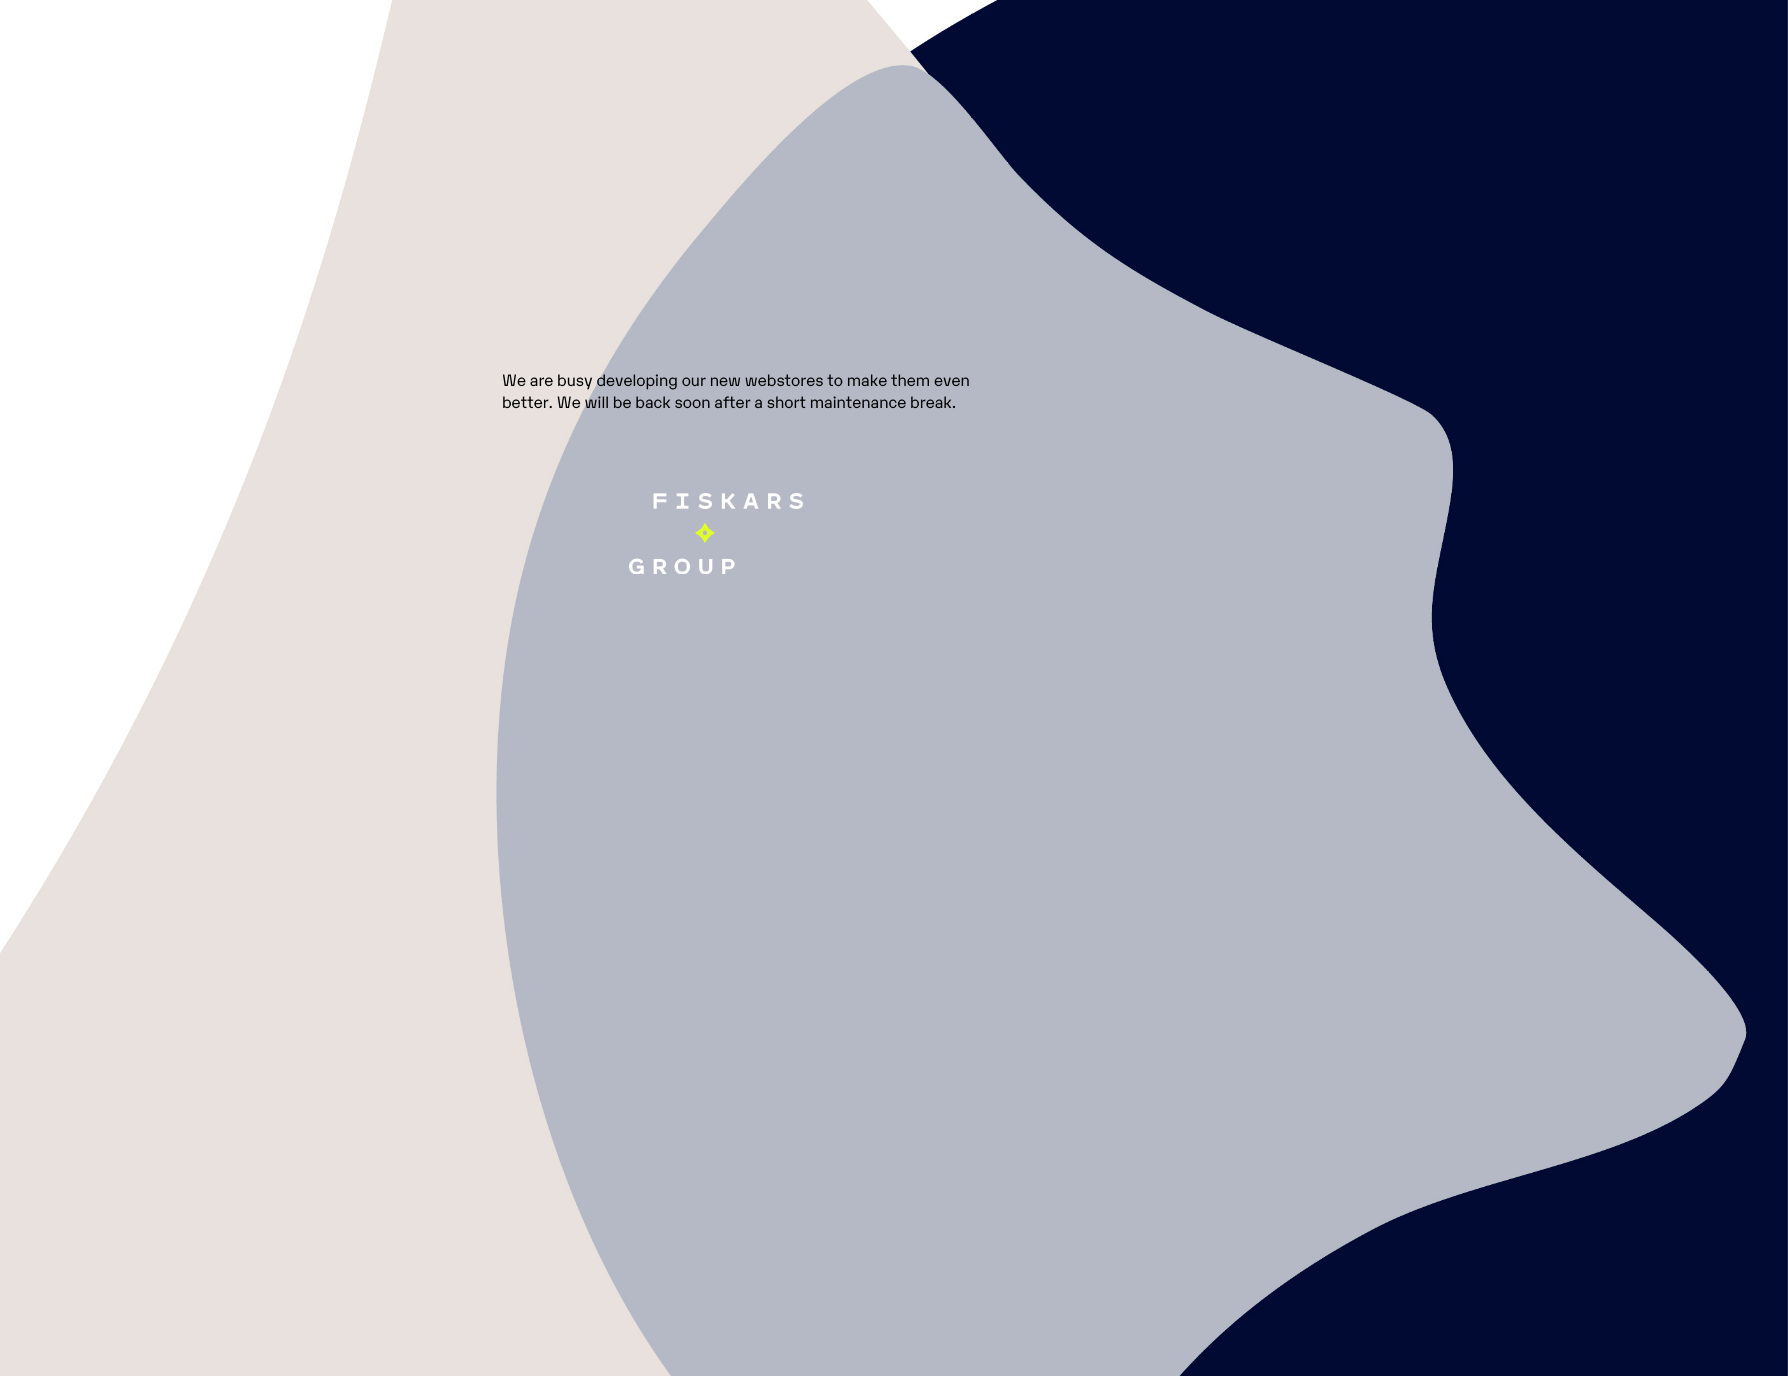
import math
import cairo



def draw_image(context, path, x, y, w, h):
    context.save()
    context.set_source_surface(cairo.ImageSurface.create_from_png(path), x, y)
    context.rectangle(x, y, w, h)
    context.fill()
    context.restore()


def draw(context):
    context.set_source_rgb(1, 1, 1)
    context.paint()
    draw_image(context, "images/1.png", 0, 0, 1788, 1376)
    draw_image(context, "images/2.png", 629, 493, 174, 81)
    context.select_font_face("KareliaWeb")
    context.set_font_size(16)
    context.set_source_rgb(0, 0, 0)
    context.move_to(502, 386)
    context.show_text("We are busy developing our new webstores to make them even")
    context.move_to(502, 408)
    context.show_text("better. We will be back soon after a short maintenance break.")


surface = cairo.ImageSurface(cairo.Format.RGB24, 1788, 1376)
context = cairo.Context(surface)
options = cairo.FontOptions()
options.set_hint_metrics(cairo.HintMetrics.OFF)
options.set_hint_style(cairo.HintStyle.NONE)
context.set_font_options(options)
context.set_miter_limit(4)
draw(context)
surface.write_to_png("out.png")
